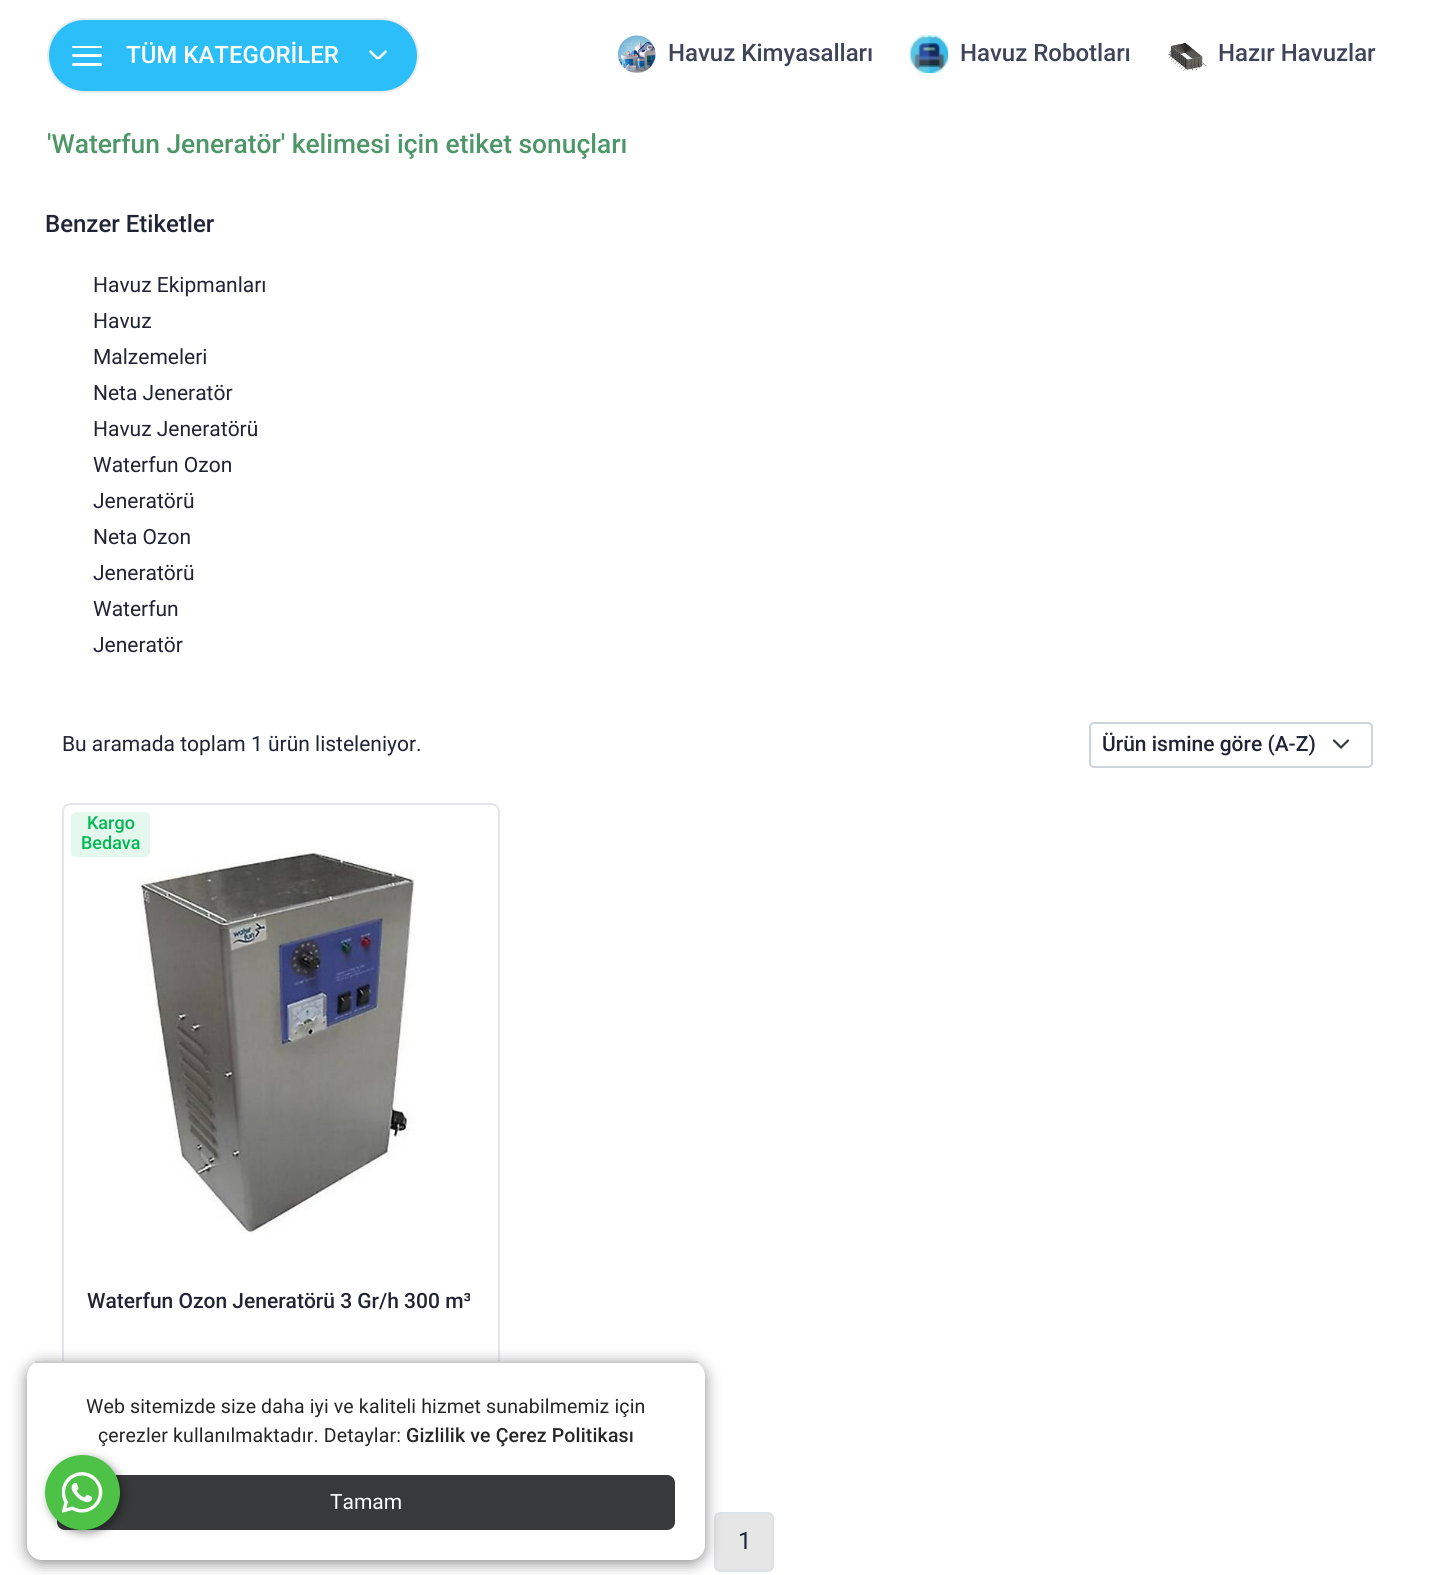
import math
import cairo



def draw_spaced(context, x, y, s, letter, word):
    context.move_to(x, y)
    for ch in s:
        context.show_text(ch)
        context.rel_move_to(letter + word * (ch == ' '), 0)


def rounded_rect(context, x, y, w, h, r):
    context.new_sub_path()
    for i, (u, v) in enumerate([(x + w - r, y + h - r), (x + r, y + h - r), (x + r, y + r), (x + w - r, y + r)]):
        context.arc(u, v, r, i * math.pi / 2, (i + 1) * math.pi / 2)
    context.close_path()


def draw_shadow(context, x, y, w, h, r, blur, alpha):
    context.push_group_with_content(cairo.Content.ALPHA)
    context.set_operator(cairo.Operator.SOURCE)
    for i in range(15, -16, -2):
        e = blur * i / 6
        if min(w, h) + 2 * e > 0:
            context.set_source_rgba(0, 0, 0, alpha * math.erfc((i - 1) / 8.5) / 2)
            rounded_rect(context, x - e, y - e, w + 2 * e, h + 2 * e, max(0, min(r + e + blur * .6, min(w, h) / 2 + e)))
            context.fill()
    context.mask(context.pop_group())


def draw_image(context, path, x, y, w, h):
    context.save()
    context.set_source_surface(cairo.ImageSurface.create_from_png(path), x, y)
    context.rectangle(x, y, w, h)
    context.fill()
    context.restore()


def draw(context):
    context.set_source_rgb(1, 1, 1)
    context.paint()
    context.set_source_rgb(43 / 255, 190 / 255, 249 / 255)
    rounded_rect(context, 48, 19, 370, 73, 36.5)
    context.fill_preserve()
    context.set_source_rgb(233 / 255, 236 / 255, 239 / 255)
    context.stroke()
    context.set_source_rgb(1, 1, 1)
    rounded_rect(context, 72, 54, 30, 3, 1.5)
    context.fill()
    rounded_rect(context, 72, 46, 30, 2, 1)
    context.fill()
    rounded_rect(context, 72, 63, 30, 3, 1.5)
    context.fill()
    draw_image(context, "images/1.png", 369, 50, 18, 10)
    draw_image(context, "images/2.png", 618, 35, 38, 38)
    draw_image(context, "images/3.png", 910, 35, 38, 38)
    draw_image(context, "images/4.png", 1168, 42, 38, 29)
    rounded_rect(context, 63, 804, 436, 671, 8)
    context.set_source_rgb(228 / 255, 229 / 255, 238 / 255)
    context.stroke()
    context.set_source_rgb(230 / 255, 230 / 255, 230 / 255)
    rounded_rect(context, 715, 1513, 58, 58, 5)
    context.fill_preserve()
    context.set_source_rgb(222 / 255, 226 / 255, 230 / 255)
    context.stroke()
    context.set_source_rgb(136 / 255, 136 / 255, 136 / 255)
    draw_shadow(context, 27, 1364, 678, 199, 15, 7.5, 1)
    context.set_source_rgb(1, 1, 1)
    rounded_rect(context, 27, 1361, 678, 199, 15)
    context.fill()
    context.set_source_rgb(204 / 255, 204 / 255, 204 / 255)
    context.rectangle(35, 1361, 663, 2)
    context.fill()
    context.set_source_rgb(55 / 255, 57 / 255, 59 / 255)
    rounded_rect(context, 57, 1475, 618, 55, 8)
    context.fill()
    context.new_path()
    context.move_to(1334, 740.5)
    context.line_to(1341, 747.5)
    context.line_to(1348, 740.5)
    context.set_source_rgb(52 / 255, 58 / 255, 64 / 255)
    context.set_line_width(2.2)
    context.set_line_cap(cairo.LineCap.ROUND)
    context.set_line_join(cairo.LineJoin.ROUND)
    context.stroke()
    rounded_rect(context, 1090, 723, 282, 44, 4)
    context.set_source_rgb(206 / 255, 212 / 255, 218 / 255)
    context.set_line_width(2)
    context.set_line_cap(cairo.LineCap.BUTT)
    context.set_line_join(cairo.LineJoin.MITER)
    context.stroke()
    draw_image(context, "images/5.png", 137, 850, 279, 384)
    context.set_source_rgb(229 / 255, 248 / 255, 237 / 255)
    rounded_rect(context, 71, 812, 79, 45, 5)
    context.fill()
    context.set_source_rgb(0, 0, 0)
    draw_shadow(context, 48, 1458, 75, 75, 37.5, 4.5, 0.4)
    context.set_source_rgb(77 / 255, 194 / 255, 71 / 255)
    context.arc(82.5, 1492.5, 37.5, 0, 2 * math.pi)
    context.fill()
    draw_image(context, "images/6.png", 62, 1472, 41, 41)
    context.select_font_face("Roboto Medium")
    context.set_font_size(24)
    context.set_source_rgb(1, 1, 1)
    context.move_to(126, 63)
    context.show_text("TÜM KATEGORİLER")
    context.set_source_rgb(62 / 255, 68 / 255, 90 / 255)
    context.move_to(668, 61)
    context.show_text("Havuz Kimyasalları")
    context.move_to(960, 61)
    context.show_text("Havuz Robotları")
    context.move_to(1218, 61)
    context.show_text("Hazır Havuzlar")
    context.select_font_face("Roboto")
    context.set_font_size(19.5)
    context.set_source_rgb(38 / 255, 38 / 255, 38 / 255)
    draw_spaced(context, 86, 1413, "Web sitemizde size daha iyi ve kaliteli hizmet sunabilmemiz için", 0.15, 0)
    draw_spaced(context, 98, 1442, "çerezler kullanılmaktadır. Detaylar:", 0.15, 0)
    context.select_font_face("Roboto Medium")
    draw_spaced(context, 406, 1442, "Gizlilik ve Çerez Politikası", 0.15, 0)
    context.select_font_face("Roboto")
    context.set_font_size(21)
    context.set_source_rgb(1, 1, 1)
    context.move_to(330, 1509)
    context.show_text("Tamam")
    context.select_font_face("Roboto Medium")
    context.set_font_size(26.4)
    context.set_source_rgb(77 / 255, 150 / 255, 104 / 255)
    context.move_to(47, 153)
    context.show_text("'Waterfun Jeneratör' kelimesi için etiket sonuçları")
    context.set_font_size(24)
    context.set_source_rgb(32 / 255, 36 / 255, 53 / 255)
    context.move_to(45, 232)
    context.show_text("Benzer Etiketler")
    context.select_font_face("Roboto")
    context.set_font_size(21)
    context.move_to(93, 292)
    context.show_text("Havuz Ekipmanları")
    context.move_to(93, 328)
    context.show_text("Havuz")
    context.move_to(93, 364)
    context.show_text("Malzemeleri")
    context.move_to(93, 400)
    context.show_text("Neta Jeneratör")
    context.move_to(93, 436)
    context.show_text("Havuz Jeneratörü")
    context.move_to(93, 472)
    context.show_text("Waterfun Ozon")
    context.move_to(93, 508)
    context.show_text("Jeneratörü")
    context.move_to(93, 544)
    context.show_text("Neta Ozon")
    context.move_to(93, 580)
    context.show_text("Jeneratörü")
    context.move_to(93, 616)
    context.show_text("Waterfun")
    context.move_to(93, 652)
    context.show_text("Jeneratör")
    context.move_to(62, 751)
    context.show_text("Bu aramada toplam 1 ürün listeleniyor.")
    context.select_font_face("Roboto Medium")
    context.move_to(1102, 751)
    context.show_text("Ürün ismine göre (A-Z)")
    context.set_font_size(18)
    context.set_source_rgb(0, 184 / 255, 83 / 255)
    context.move_to(87, 829)
    context.show_text("Kargo")
    context.move_to(81, 849)
    context.show_text("Bedava")
    context.set_font_size(21)
    context.set_source_rgb(32 / 255, 36 / 255, 53 / 255)
    context.move_to(87, 1308)
    context.show_text("Waterfun Ozon Jeneratörü 3 Gr/h 300 m³")
    context.select_font_face("Roboto")
    context.set_font_size(24)
    context.move_to(738, 1549)
    context.show_text("1")


surface = cairo.ImageSurface(cairo.Format.RGB24, 1436, 1575)
context = cairo.Context(surface)
options = cairo.FontOptions()
options.set_hint_metrics(cairo.HintMetrics.OFF)
options.set_hint_style(cairo.HintStyle.NONE)
context.set_font_options(options)
context.set_miter_limit(4)
draw(context)
surface.write_to_png("out.png")
